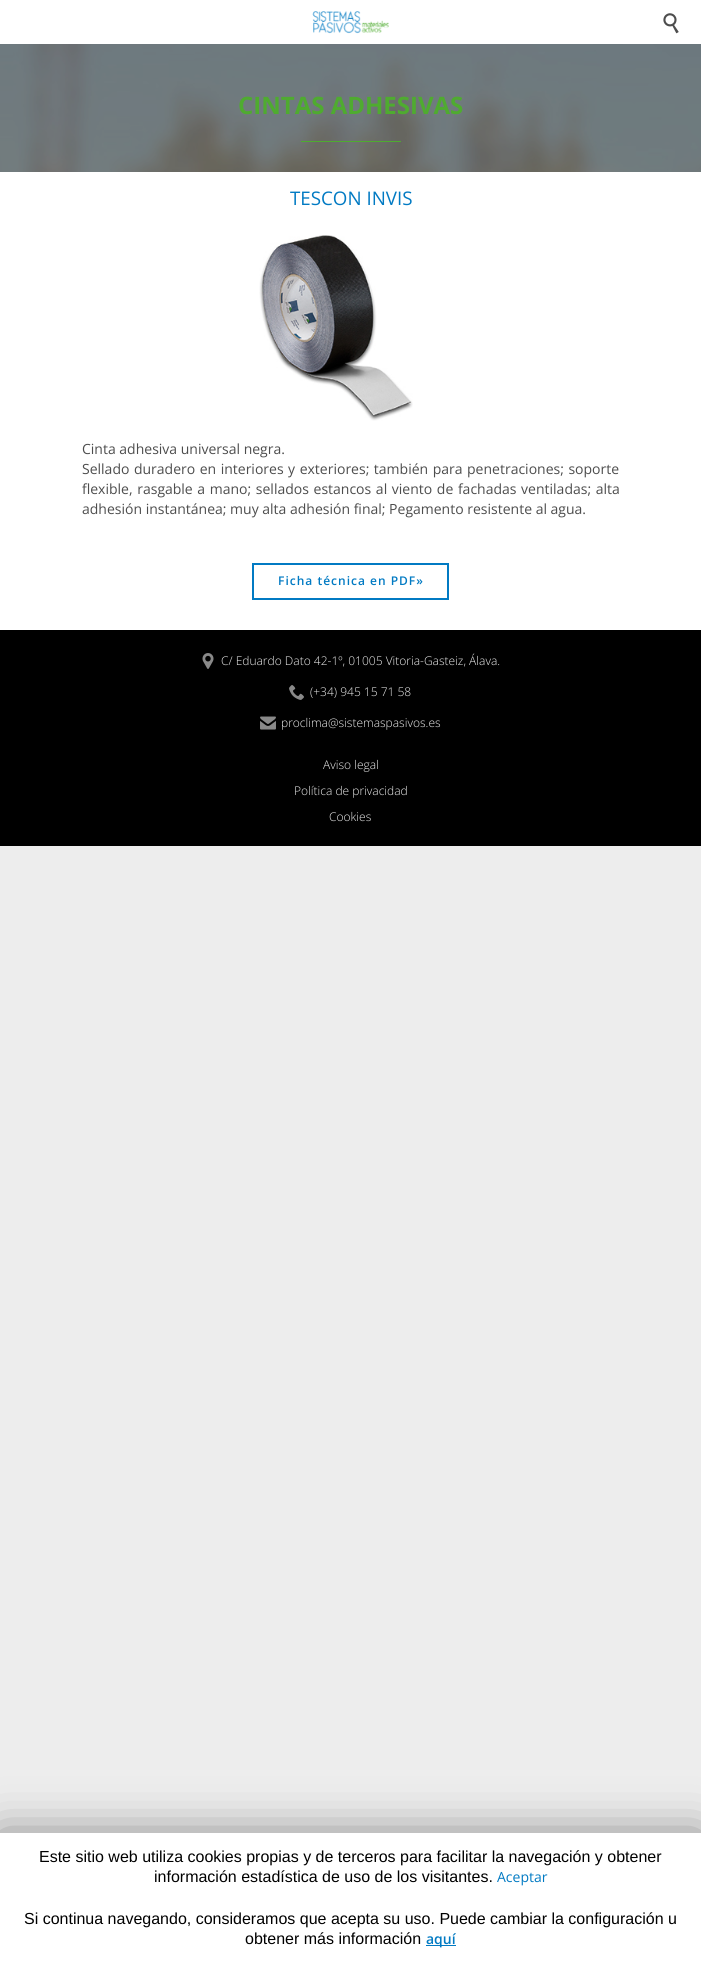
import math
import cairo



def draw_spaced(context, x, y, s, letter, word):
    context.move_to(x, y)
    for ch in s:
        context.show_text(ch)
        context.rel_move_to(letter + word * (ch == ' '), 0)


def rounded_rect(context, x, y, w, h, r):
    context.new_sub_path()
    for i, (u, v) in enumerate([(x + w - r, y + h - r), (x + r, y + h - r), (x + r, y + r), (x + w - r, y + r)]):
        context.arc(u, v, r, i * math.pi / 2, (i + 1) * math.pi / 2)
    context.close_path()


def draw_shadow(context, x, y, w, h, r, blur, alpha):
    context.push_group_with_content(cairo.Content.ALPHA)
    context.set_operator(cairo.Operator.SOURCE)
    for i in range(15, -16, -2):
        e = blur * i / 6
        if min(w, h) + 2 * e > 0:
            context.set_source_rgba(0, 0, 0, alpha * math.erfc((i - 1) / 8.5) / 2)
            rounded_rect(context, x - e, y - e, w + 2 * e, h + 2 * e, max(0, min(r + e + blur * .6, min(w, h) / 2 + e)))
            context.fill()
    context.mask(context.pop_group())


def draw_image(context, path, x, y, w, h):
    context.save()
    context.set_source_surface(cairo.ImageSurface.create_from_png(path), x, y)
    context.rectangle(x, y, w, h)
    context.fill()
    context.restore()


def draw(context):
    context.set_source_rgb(237 / 255, 237 / 255, 237 / 255)
    context.paint()
    context.set_source_rgb(1, 1, 1)
    context.rectangle(0, 0, 701, 44)
    context.fill()
    draw_image(context, "images/1.png", 312, 11, 77, 23)
    draw_image(context, "images/2.png", 663, 13, 16, 21)
    draw_image(context, "images/3.png", 0, 44, 701, 128)
    context.set_source_rgb(79 / 255, 171 / 255, 48 / 255)
    context.rectangle(301, 141, 100, 1)
    context.fill()
    context.set_source_rgb(1, 1, 1)
    context.rectangle(0, 172, 701, 458)
    context.fill()
    draw_image(context, "images/4.png", 259, 235, 154, 186)
    context.rectangle(253, 564, 195, 35)
    context.set_source_rgb(1 / 255, 122 / 255, 195 / 255)
    context.stroke()
    context.set_source_rgb(0, 0, 0)
    context.rectangle(0, 630, 701, 216)
    context.fill()
    draw_image(context, "images/5.png", 202, 653, 12, 16)
    draw_image(context, "images/6.png", 289, 685, 15, 15)
    draw_image(context, "images/7.png", 260, 716, 16, 14)
    context.set_source_rgb(0, 0, 0)
    draw_shadow(context, 0, 1838, 701, 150, 0, 25, 0.5)
    context.set_source_rgb(1, 1, 1)
    context.rectangle(0, 1833, 701, 150)
    context.fill()
    context.set_source_rgb(1 / 255, 122 / 255, 195 / 255)
    context.rectangle(426, 1945, 30, 1)
    context.fill()
    context.select_font_face("Open Sans", cairo.FontSlant.NORMAL, cairo.FontWeight.BOLD)
    context.set_font_size(24)
    context.set_source_rgb(79 / 255, 171 / 255, 48 / 255)
    context.move_to(238, 114)
    context.show_text("CINTAS ADHESIVAS")
    context.select_font_face("Open Sans")
    context.set_font_size(18.75)
    context.set_source_rgb(1 / 255, 122 / 255, 195 / 255)
    context.move_to(290, 205)
    context.show_text("TESCON INVIS")
    context.set_font_size(14)
    context.set_source_rgb(77 / 255, 77 / 255, 77 / 255)
    context.move_to(82, 454)
    context.show_text("Cinta adhesiva universal negra.")
    draw_spaced(context, 82, 474, "Sellado duradero en interiores y exteriores; también para penetraciones; soporte", 0, 0.9)
    draw_spaced(context, 82, 494, "flexible, rasgable a mano; sellados estancos al viento de fachadas ventiladas; alta", 0, 1)
    context.move_to(82, 514)
    context.show_text("adhesión instantánea; muy alta adhesión final; Pegamento resistente al agua.")
    context.select_font_face("Open Sans SemiBold")
    context.set_font_size(12)
    context.set_source_rgb(1 / 255, 122 / 255, 195 / 255)
    draw_spaced(context, 278, 585, "Ficha técnica en PDF»", 1, 0)
    context.select_font_face("Open Sans Light")
    context.set_source_rgb(238 / 255, 238 / 255, 238 / 255)
    context.move_to(221, 665)
    context.show_text("C/ Eduardo Dato 42-1º, 01005 Vitoria-Gasteiz, Álava.")
    context.move_to(310, 696)
    context.show_text("(+34) 945 15 71 58")
    context.move_to(281, 727)
    context.show_text("proclima@sistemaspasivos.es")
    context.move_to(323, 769)
    context.show_text("Aviso legal")
    context.move_to(294, 795)
    context.show_text("Política de privacidad")
    context.move_to(329, 821)
    context.show_text("Cookies")
    context.select_font_face("Liberation Sans")
    context.set_font_size(16)
    context.set_source_rgb(0, 0, 0)
    context.move_to(39, 1862)
    context.show_text("Este sitio web utiliza cookies propias y de terceros para facilitar la navegación y obtener")
    context.move_to(154, 1882)
    context.show_text("información estadística de uso de los visitantes.")
    context.select_font_face("Open Sans")
    context.set_font_size(14)
    context.set_source_rgb(1 / 255, 122 / 255, 195 / 255)
    context.move_to(497, 1882)
    context.show_text("Aceptar")
    context.select_font_face("Liberation Sans")
    context.set_font_size(16)
    context.set_source_rgb(0, 0, 0)
    context.move_to(24, 1924)
    context.show_text("Si continua navegando, consideramos que acepta su uso. Puede cambiar la configuración u")
    context.move_to(245, 1944)
    context.show_text("obtener más información")
    context.select_font_face("Open Sans SemiBold")
    context.set_font_size(14)
    context.set_source_rgb(1 / 255, 122 / 255, 195 / 255)
    context.move_to(426, 1944)
    context.show_text("aquí")


surface = cairo.ImageSurface(cairo.Format.RGB24, 701, 1983)
context = cairo.Context(surface)
options = cairo.FontOptions()
options.set_hint_metrics(cairo.HintMetrics.OFF)
options.set_hint_style(cairo.HintStyle.NONE)
context.set_font_options(options)
context.set_miter_limit(4)
draw(context)
surface.write_to_png("out.png")
